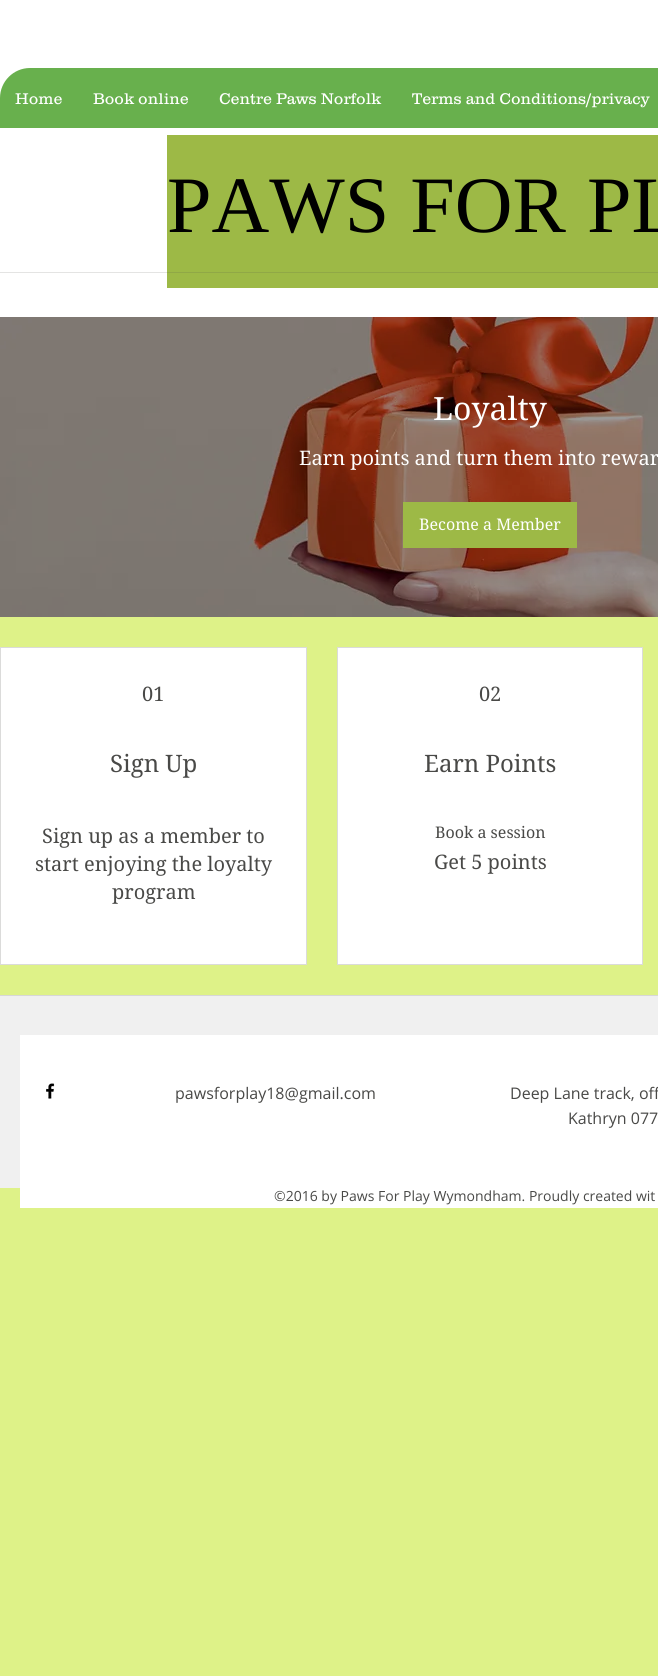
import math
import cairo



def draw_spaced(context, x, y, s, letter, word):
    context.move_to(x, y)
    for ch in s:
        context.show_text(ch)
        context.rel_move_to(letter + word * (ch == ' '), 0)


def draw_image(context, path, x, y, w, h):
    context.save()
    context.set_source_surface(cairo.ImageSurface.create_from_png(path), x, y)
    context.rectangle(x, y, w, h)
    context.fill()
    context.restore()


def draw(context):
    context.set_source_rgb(222 / 255, 242 / 255, 136 / 255)
    context.paint()
    context.set_source_rgb(1, 1, 1)
    context.rectangle(0, 0, 658, 317)
    context.fill()
    context.set_source_rgb(228 / 255, 228 / 255, 227 / 255)
    context.rectangle(0, 272, 167, 1)
    context.fill()
    context.set_source_rgb(104 / 255, 176 / 255, 77 / 255)
    context.new_path()
    context.move_to(30, 68)
    context.line_to(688, 68)
    context.line_to(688, 98)
    context.curve_to(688, 114.5, 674.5, 128, 658, 128)
    context.line_to(0, 128)
    context.line_to(0, 98)
    context.curve_to(0, 81.5, 13.5, 68, 30, 68)
    context.close_path()
    context.fill()
    context.set_source_rgb(157 / 255, 185 / 255, 70 / 255)
    context.rectangle(167, 135, 491, 153)
    context.fill()
    context.set_source_rgb(144 / 255, 168 / 255, 70 / 255)
    context.rectangle(167, 272, 491, 1)
    context.fill()
    context.set_source_rgb(0, 0, 0)
    context.rectangle(0, 317, 658, 300)
    context.fill()
    draw_image(context, "images/1.png", 0, 317, 658, 300)
    context.set_source_rgb(157 / 255, 185 / 255, 70 / 255)
    context.rectangle(403, 502, 174, 46)
    context.fill()
    context.set_source_rgb(1, 1, 1)
    context.rectangle(0.5, 647.5, 306, 317)
    context.fill_preserve()
    context.set_source_rgb(219 / 255, 219 / 255, 218 / 255)
    context.set_line_width(1)
    context.stroke()
    context.set_source_rgb(1, 1, 1)
    context.rectangle(337.5, 647.5, 305, 317)
    context.fill_preserve()
    context.set_source_rgb(219 / 255, 219 / 255, 218 / 255)
    context.stroke()
    context.set_source_rgb(240 / 255, 240 / 255, 240 / 255)
    context.rectangle(0, 996, 658, 192)
    context.fill()
    context.set_source_rgb(215 / 255, 215 / 255, 215 / 255)
    context.rectangle(0, 995, 658, 1)
    context.fill()
    context.set_source_rgb(1, 1, 1)
    context.rectangle(20, 1035, 638, 173)
    context.fill()
    draw_image(context, "images/2.png", 46, 1083, 9, 16)
    context.select_font_face("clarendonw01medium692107 Light")
    context.set_font_size(16)
    context.move_to(15, 104)
    context.show_text("Home")
    context.move_to(93, 104)
    context.show_text("Book online")
    context.move_to(219, 104)
    context.show_text("Centre Paws Norfolk")
    context.move_to(412, 104)
    context.show_text("Terms and Conditions/privacy")
    context.select_font_face("Liberation Serif")
    context.set_font_size(80)
    context.set_source_rgb(0, 0, 0)
    draw_spaced(context, 167, 232, "PAWS FOR PL", 0, 1)
    context.select_font_face("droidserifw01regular")
    context.set_font_size(32)
    context.set_source_rgb(1, 1, 1)
    context.move_to(433, 420)
    context.show_text("Loyalty")
    context.set_font_size(20)
    context.move_to(299, 465)
    context.show_text("Earn points and turn them into rewar")
    context.set_font_size(16)
    context.move_to(419, 530)
    context.show_text("Become a Member")
    context.set_font_size(20)
    context.set_source_rgb(73 / 255, 73 / 255, 71 / 255)
    context.move_to(142, 701)
    context.show_text("01")
    context.set_font_size(24)
    context.move_to(110, 772)
    context.show_text("Sign Up")
    context.set_font_size(20)
    context.move_to(42, 843)
    context.show_text("Sign up as a member to")
    context.move_to(35, 871)
    context.show_text("start enjoying the loyalty")
    context.move_to(112, 899)
    context.show_text("program")
    context.move_to(479, 701)
    context.show_text("02")
    context.set_font_size(24)
    context.move_to(424, 772)
    context.show_text("Earn Points")
    context.set_font_size(16)
    context.move_to(435, 838)
    context.show_text("Book a session")
    context.set_font_size(20)
    context.move_to(434, 869)
    context.show_text("Get 5 points")
    context.select_font_face("Open Sans")
    context.set_font_size(16)
    context.move_to(175, 1099)
    context.show_text("pawsforplay18@gmail.com")
    context.move_to(510, 1099)
    context.show_text("Deep Lane track, off")
    context.move_to(568, 1124)
    context.show_text("Kathryn 077")
    context.set_font_size(14)
    context.move_to(274, 1201)
    context.show_text("©2016 by Paws For Play Wymondham. Proudly created wit")


surface = cairo.ImageSurface(cairo.Format.RGB24, 658, 1676)
context = cairo.Context(surface)
options = cairo.FontOptions()
options.set_hint_metrics(cairo.HintMetrics.OFF)
options.set_hint_style(cairo.HintStyle.NONE)
context.set_font_options(options)
context.set_miter_limit(4)
draw(context)
surface.write_to_png("out.png")
